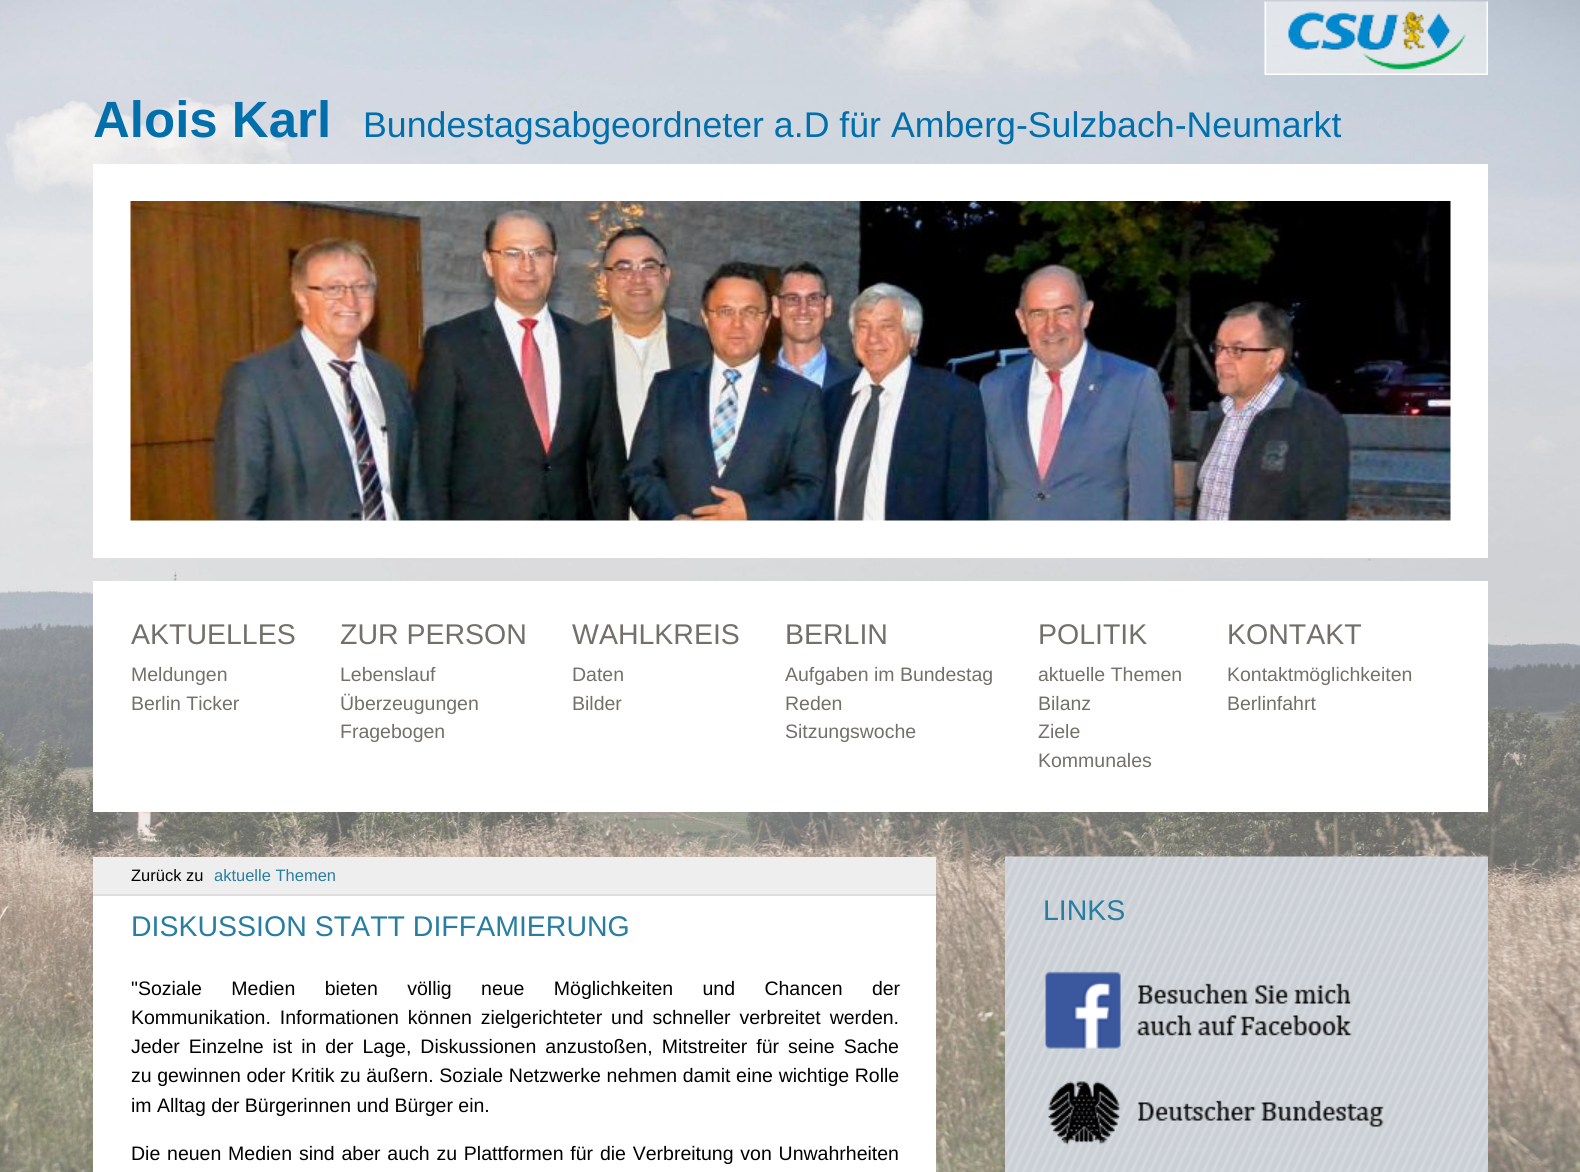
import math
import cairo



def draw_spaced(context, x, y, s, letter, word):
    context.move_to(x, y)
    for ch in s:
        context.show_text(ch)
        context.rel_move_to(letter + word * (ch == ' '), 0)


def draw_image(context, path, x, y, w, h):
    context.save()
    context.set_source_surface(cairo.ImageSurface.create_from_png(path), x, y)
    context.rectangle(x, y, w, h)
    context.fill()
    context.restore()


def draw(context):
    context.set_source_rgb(1, 1, 1)
    context.paint()
    draw_image(context, "images/1.png", 0, 0, 1580, 1172)
    draw_image(context, "images/2.png", 1264, 1, 224, 74)
    context.set_source_rgb(1, 1, 1)
    context.rectangle(93, 164, 1395, 394)
    context.fill()
    draw_image(context, "images/3.png", 130, 201, 1321, 320)
    context.rectangle(93, 581, 1395, 231)
    context.fill()
    context.rectangle(93, 896, 843, 276)
    context.fill()
    context.set_source_rgb(238 / 255, 238 / 255, 238 / 255)
    context.rectangle(93, 857, 843, 37)
    context.fill()
    context.set_source_rgb(221 / 255, 221 / 255, 221 / 255)
    context.rectangle(93, 894, 843, 2)
    context.fill()
    draw_image(context, "images/4.png", 1005, 856, 483, 316)
    draw_image(context, "images/5.png", 1045, 971, 307, 78)
    draw_image(context, "images/6.png", 1048, 1081, 336, 64)
    context.select_font_face("Liberation Sans", cairo.FontSlant.NORMAL, cairo.FontWeight.BOLD)
    context.set_font_size(51)
    context.set_source_rgb(2 / 255, 111 / 255, 173 / 255)
    context.move_to(93, 137)
    context.show_text("Alois Karl")
    context.select_font_face("Liberation Sans")
    context.set_font_size(35.7)
    context.move_to(363, 137)
    context.show_text("Bundestagsabgeordneter a.D für Amberg-Sulzbach-Neumarkt")
    context.set_font_size(28.5)
    context.set_source_rgb(115 / 255, 112 / 255, 107 / 255)
    context.move_to(131, 644)
    context.show_text("AKTUELLES")
    context.set_font_size(19.5)
    context.move_to(131, 681)
    context.show_text("Meldungen")
    context.move_to(131, 710)
    context.show_text("Berlin Ticker")
    context.set_font_size(28.5)
    context.move_to(340, 644)
    context.show_text("ZUR PERSON")
    context.set_font_size(19.5)
    context.move_to(340, 681)
    context.show_text("Lebenslauf")
    context.move_to(340, 710)
    context.show_text("Überzeugungen")
    context.move_to(340, 738)
    context.show_text("Fragebogen")
    context.set_font_size(28.5)
    context.move_to(572, 644)
    context.show_text("WAHLKREIS")
    context.set_font_size(19.5)
    context.move_to(572, 681)
    context.show_text("Daten")
    context.move_to(572, 710)
    context.show_text("Bilder")
    context.set_font_size(28.5)
    context.move_to(785, 644)
    context.show_text("BERLIN")
    context.set_font_size(19.5)
    context.move_to(785, 681)
    context.show_text("Aufgaben im Bundestag")
    context.move_to(785, 710)
    context.show_text("Reden")
    context.move_to(785, 738)
    context.show_text("Sitzungswoche")
    context.set_font_size(28.5)
    context.move_to(1038, 644)
    context.show_text("POLITIK")
    context.set_font_size(19.5)
    context.move_to(1038, 681)
    context.show_text("aktuelle Themen")
    context.move_to(1038, 710)
    context.show_text("Bilanz")
    context.move_to(1038, 738)
    context.show_text("Ziele")
    context.move_to(1038, 767)
    context.show_text("Kommunales")
    context.set_font_size(28.5)
    context.move_to(1227, 644)
    context.show_text("KONTAKT")
    context.set_font_size(19.5)
    context.move_to(1227, 681)
    context.show_text("Kontaktmöglichkeiten")
    context.move_to(1227, 710)
    context.show_text("Berlinfahrt")
    context.set_font_size(16.5)
    context.set_source_rgb(0, 0, 0)
    context.move_to(131, 881)
    context.show_text("Zurück zu")
    context.set_source_rgb(40 / 255, 126 / 255, 160 / 255)
    context.move_to(214, 881)
    context.show_text("aktuelle Themen")
    context.set_font_size(28.5)
    context.move_to(131, 936)
    context.show_text("DISKUSSION STATT DIFFAMIERUNG")
    context.set_font_size(19.5)
    context.set_source_rgb(0, 0, 0)
    draw_spaced(context, 131, 995, "\"Soziale Medien bieten völlig neue Möglichkeiten und Chancen der", 0, 24)
    draw_spaced(context, 131, 1024, "Kommunikation. Informationen können zielgerichteter und schneller verbreitet werden.", 0, 3.5)
    draw_spaced(context, 131, 1053, "Jeder Einzelne ist in der Lage, Diskussionen anzustoßen, Mitstreiter für seine Sache", 0, 3.6)
    draw_spaced(context, 131, 1082, "zu gewinnen oder Kritik zu äußern. Soziale Netzwerke nehmen damit eine wichtige Rolle", 0, 0.25)
    context.move_to(131, 1112)
    context.show_text("im Alltag der Bürgerinnen und Bürger ein.")
    draw_spaced(context, 131, 1160, "Die neuen Medien sind aber auch zu Plattformen für die Verbreitung von Unwahrheiten", 0, 1.4)
    context.set_font_size(28.5)
    context.set_source_rgb(40 / 255, 126 / 255, 160 / 255)
    context.move_to(1043, 920)
    context.show_text("LINKS")


surface = cairo.ImageSurface(cairo.Format.RGB24, 1580, 1172)
context = cairo.Context(surface)
options = cairo.FontOptions()
options.set_hint_metrics(cairo.HintMetrics.OFF)
options.set_hint_style(cairo.HintStyle.NONE)
context.set_font_options(options)
context.set_miter_limit(4)
draw(context)
surface.write_to_png("out.png")
